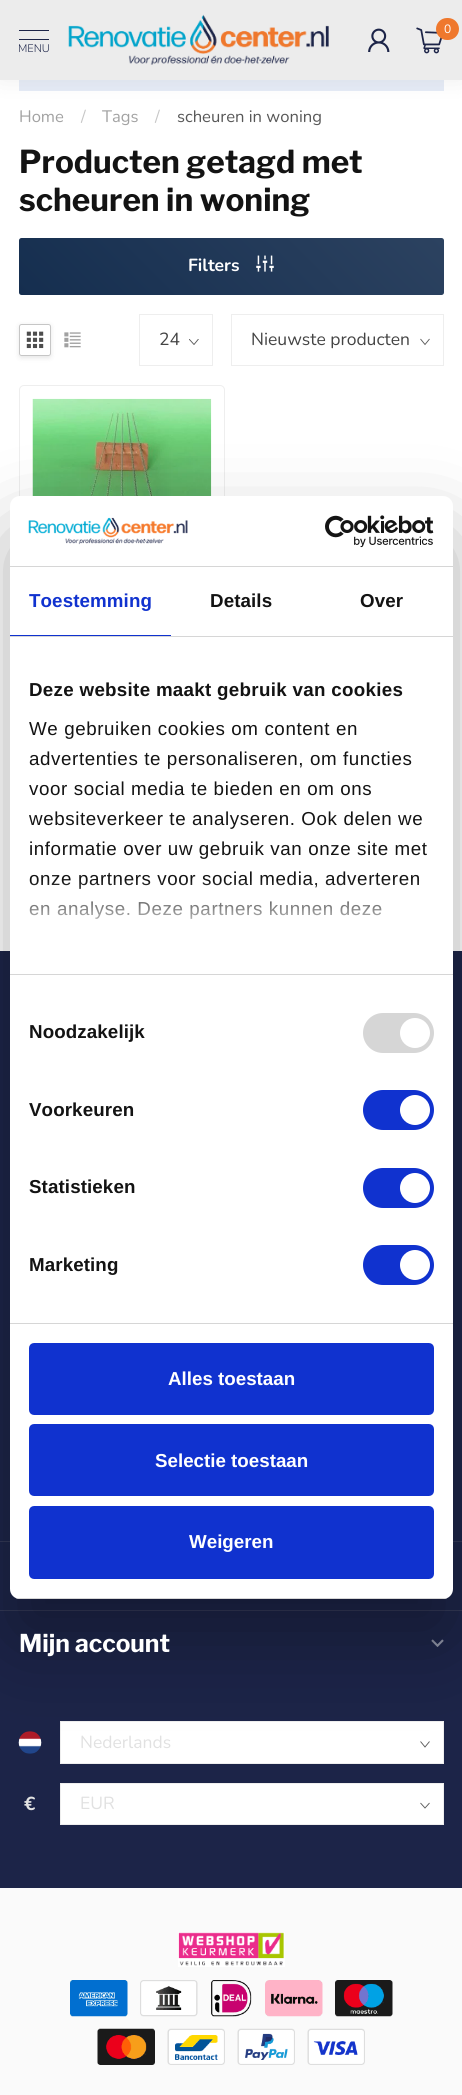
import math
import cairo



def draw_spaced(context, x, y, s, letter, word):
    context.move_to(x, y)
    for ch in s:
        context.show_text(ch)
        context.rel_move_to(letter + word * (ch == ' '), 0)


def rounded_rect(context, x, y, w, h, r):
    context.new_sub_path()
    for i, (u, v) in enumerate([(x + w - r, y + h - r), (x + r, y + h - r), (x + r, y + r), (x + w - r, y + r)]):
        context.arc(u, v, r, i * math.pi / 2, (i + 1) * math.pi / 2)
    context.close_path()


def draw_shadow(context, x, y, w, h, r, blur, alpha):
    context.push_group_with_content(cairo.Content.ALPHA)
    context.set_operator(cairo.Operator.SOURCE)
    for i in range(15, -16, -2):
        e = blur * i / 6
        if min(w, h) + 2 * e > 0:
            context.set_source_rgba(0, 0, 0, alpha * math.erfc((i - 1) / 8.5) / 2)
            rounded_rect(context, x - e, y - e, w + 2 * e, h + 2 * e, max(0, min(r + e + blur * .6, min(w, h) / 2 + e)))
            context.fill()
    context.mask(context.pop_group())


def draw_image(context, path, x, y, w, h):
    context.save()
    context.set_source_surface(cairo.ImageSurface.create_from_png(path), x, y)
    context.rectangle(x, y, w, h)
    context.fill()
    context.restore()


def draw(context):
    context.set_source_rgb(1, 1, 1)
    context.paint()
    context.set_source_rgb(230 / 255, 236 / 255, 247 / 255)
    context.rectangle(19, 80, 425, 11)
    context.fill()
    context.set_source_rgb(0, 0, 0)
    draw_shadow(context, 0, -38, 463, 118, 0, 12.5, 0.07)
    context.set_source_rgb(236 / 255, 236 / 255, 236 / 255)
    context.rectangle(0, 0, 462, 80)
    context.fill()
    draw_image(context, "images/1.png", 368, 28, 22, 24)
    draw_image(context, "images/2.png", 416, 27, 27, 27)
    context.set_source_rgb(239 / 255, 120 / 255, 45 / 255)
    rounded_rect(context, 436, 18, 23, 22, 11)
    context.fill()
    context.set_source_rgb(28 / 255, 36 / 255, 72 / 255)
    context.rectangle(19, 30, 30, 1)
    context.fill()
    context.rectangle(19, 39, 30, 1)
    context.fill()
    draw_image(context, "images/3.png", 68, 14, 261, 51)
    gradient = cairo.LinearGradient(111, 387, 352, 146)
    gradient.add_color_stop_rgba(0, 21 / 255, 46 / 255, 79 / 255, 1)
    gradient.add_color_stop_rgba(1, 44 / 255, 66 / 255, 96 / 255, 1)
    context.set_source(gradient)
    rounded_rect(context, 19, 238, 425, 57, 2.5)
    context.fill()
    draw_image(context, "images/4.png", 256, 255, 18, 17)
    context.save()
    context.set_fill_rule(cairo.FillRule.EVEN_ODD)
    context.new_path()
    context.move_to(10, 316)
    context.line_to(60, 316)
    context.line_to(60, 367)
    context.line_to(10, 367)
    context.close_path()
    context.move_to(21.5, 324)
    context.line_to(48.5, 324)
    context.curve_to(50, 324, 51, 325, 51, 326.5)
    context.line_to(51, 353.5)
    context.curve_to(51, 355, 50, 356, 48.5, 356)
    context.line_to(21.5, 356)
    context.curve_to(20, 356, 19, 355, 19, 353.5)
    context.line_to(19, 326.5)
    context.curve_to(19, 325, 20, 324, 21.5, 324)
    context.close_path()
    context.clip()
    context.set_source_rgb(0, 0, 0)
    draw_shadow(context, 19, 325, 32, 33, 2.5, 2.5, 0.1)
    context.restore()
    rounded_rect(context, 19.5, 324.5, 31, 31, 2)
    context.set_source_rgb(198 / 255, 198 / 255, 198 / 255)
    context.set_line_width(1)
    context.stroke()
    draw_image(context, "images/5.png", 26, 331, 18, 18)
    draw_image(context, "images/6.png", 64, 332, 17, 16)
    context.save()
    context.rectangle(189, 339, 10, 6)
    context.clip()
    context.new_path()
    context.move_to(198.5, 339)
    context.line_to(194, 344.5)
    context.line_to(189, 339)
    context.set_source_rgb(89 / 255, 89 / 255, 89 / 255)
    context.set_line_width(0.9)
    context.stroke()
    context.restore()
    context.rectangle(139.5, 314.5, 73, 51)
    context.set_source_rgb(238 / 255, 238 / 255, 238 / 255)
    context.stroke()
    context.new_path()
    context.move_to(429.5, 339)
    context.line_to(425, 344.5)
    context.line_to(420.5, 339)
    context.set_source_rgb(89 / 255, 89 / 255, 89 / 255)
    context.set_line_width(0.9)
    context.stroke()
    context.rectangle(231.5, 314.5, 212, 51)
    context.set_source_rgb(238 / 255, 238 / 255, 238 / 255)
    context.set_line_width(1)
    context.stroke()
    rounded_rect(context, 19.5, 385.5, 205, 465, 4.5)
    context.stroke()
    draw_image(context, "images/7.png", 32, 398, 180, 98)
    context.set_source_rgb(28 / 255, 36 / 255, 72 / 255)
    context.rectangle(0, 951, 462, 937)
    context.fill()
    context.set_source_rgb(50 / 255, 56 / 255, 86 / 255)
    context.rectangle(0, 1541, 462, 1)
    context.fill()
    context.rectangle(0, 1610, 462, 1)
    context.fill()
    draw_image(context, "images/10.png", 431, 1639, 13, 8)
    draw_image(context, "images/11.png", 18, 1731, 24, 23)
    context.set_source_rgb(1, 1, 1)
    context.rectangle(61, 1722, 382, 41)
    context.fill()
    context.new_path()
    context.move_to(429.5, 1741.5)
    context.line_to(425, 1747)
    context.line_to(420.5, 1741.5)
    context.set_source_rgb(89 / 255, 89 / 255, 89 / 255)
    context.set_line_width(0.9)
    context.stroke()
    context.rectangle(60.5, 1721.5, 383, 42)
    context.set_source_rgb(238 / 255, 238 / 255, 238 / 255)
    context.set_line_width(1)
    context.stroke()
    context.set_source_rgb(0, 0, 0)
    draw_shadow(context, 10, 536, 443, 1103, 10, 42.5, 0.3)
    context.set_source_rgb(1, 1, 1)
    rounded_rect(context, 10, 496, 443, 1103, 10)
    context.fill()
    context.set_source_rgb(214 / 255, 214 / 255, 214 / 255)
    context.rectangle(10, 566, 443, 1)
    context.fill()
    draw_image(context, "images/8.png", 28, 517, 160, 28)
    draw_image(context, "images/9.png", 325, 515, 109, 33)
    context.rectangle(10, 636, 443, 1)
    context.fill()
    context.set_source_rgb(16 / 255, 50 / 255, 207 / 255)
    context.rectangle(10, 635, 161, 1)
    context.fill()
    context.set_source_rgb(214 / 255, 214 / 255, 214 / 255)
    context.rectangle(10, 974, 443, 1)
    context.fill()
    context.rectangle(10, 1323, 443, 1)
    context.fill()
    rounded_rect(context, 363, 1013, 71, 40, 20)
    context.fill()
    context.set_source_rgb(1, 1, 1)
    context.arc(415, 1033, 15, 0, 2 * math.pi)
    context.fill()
    context.set_source_rgb(16 / 255, 50 / 255, 207 / 255)
    rounded_rect(context, 363, 1090, 71, 40, 20)
    context.fill()
    context.set_source_rgb(1, 1, 1)
    context.arc(415, 1110, 15, 0, 2 * math.pi)
    context.fill()
    context.set_source_rgb(16 / 255, 50 / 255, 207 / 255)
    rounded_rect(context, 363, 1168, 71, 40, 20)
    context.fill()
    context.set_source_rgb(1, 1, 1)
    context.arc(415, 1188, 15, 0, 2 * math.pi)
    context.fill()
    context.set_source_rgb(16 / 255, 50 / 255, 207 / 255)
    rounded_rect(context, 363, 1245, 71, 40, 20)
    context.fill()
    context.set_source_rgb(1, 1, 1)
    context.arc(415, 1265, 15, 0, 2 * math.pi)
    context.fill()
    context.save()
    rounded_rect(context, 10, 496, 443, 1103, 10)
    context.clip()
    context.set_source_rgb(214 / 255, 214 / 255, 214 / 255)
    context.rectangle(10, 1598, 443, 1)
    context.fill()
    context.restore()
    context.set_source_rgb(16 / 255, 50 / 255, 207 / 255)
    rounded_rect(context, 30.5, 1344.5, 402, 69, 3.5)
    context.fill_preserve()
    context.set_line_width(3)
    context.stroke()
    rounded_rect(context, 30.5, 1425.5, 402, 69, 3.5)
    context.fill_preserve()
    context.stroke()
    rounded_rect(context, 30.5, 1507.5, 402, 70, 3.5)
    context.fill_preserve()
    context.stroke()
    context.set_source_rgb(1, 1, 1)
    context.rectangle(61, 1784, 382, 40)
    context.fill()
    context.new_path()
    context.move_to(429.5, 1803)
    context.line_to(425, 1808)
    context.line_to(420.5, 1803)
    context.set_source_rgb(89 / 255, 89 / 255, 89 / 255)
    context.set_line_width(0.9)
    context.stroke()
    context.rectangle(60.5, 1783.5, 383, 41)
    context.set_source_rgb(238 / 255, 238 / 255, 238 / 255)
    context.set_line_width(1)
    context.stroke()
    context.set_source_rgb(250 / 255, 250 / 255, 250 / 255)
    context.rectangle(0, 1888, 462, 207)
    context.fill()
    draw_image(context, "images/12.png", 178, 1932, 107, 35)
    draw_image(context, "images/13.png", 70, 1980, 58, 37)
    draw_image(context, "images/14.png", 140, 1980, 58, 37)
    draw_image(context, "images/15.png", 211, 1980, 41, 37)
    draw_image(context, "images/16.png", 265, 1980, 58, 37)
    draw_image(context, "images/17.png", 335, 1980, 58, 37)
    draw_image(context, "images/18.png", 97, 2028, 58, 37)
    draw_image(context, "images/19.png", 167, 2028, 58, 37)
    draw_image(context, "images/20.png", 237, 2028, 58, 37)
    draw_image(context, "images/21.png", 307, 2028, 58, 37)
    context.select_font_face("Nunito")
    context.set_font_size(12)
    context.set_source_rgb(1, 1, 1)
    context.move_to(444, 33)
    context.show_text("0")
    context.select_font_face("Nunito Light")
    context.set_font_size(11)
    context.set_source_rgb(28 / 255, 36 / 255, 72 / 255)
    context.move_to(18, 52)
    context.show_text("MENU")
    context.select_font_face("Nunito")
    context.set_font_size(16.6)
    context.set_source_rgb(162 / 255, 162 / 255, 162 / 255)
    context.move_to(19, 122)
    context.show_text("Home")
    context.set_source_rgb(199 / 255, 199 / 255, 199 / 255)
    context.move_to(81, 122)
    context.show_text("/")
    context.set_source_rgb(162 / 255, 162 / 255, 162 / 255)
    context.move_to(102, 122)
    context.show_text("Tags")
    context.set_source_rgb(199 / 255, 199 / 255, 199 / 255)
    context.move_to(155, 122)
    context.show_text("/")
    context.set_source_rgb(87 / 255, 87 / 255, 87 / 255)
    context.move_to(177, 122)
    context.show_text("scheuren in woning")
    context.select_font_face("Libre Franklin", cairo.FontSlant.NORMAL, cairo.FontWeight.BOLD)
    context.set_font_size(31.5)
    context.set_source_rgb(19 / 255, 19 / 255, 19 / 255)
    context.move_to(19, 173)
    context.show_text("Producten getagd met")
    context.move_to(19, 211)
    context.show_text("scheuren in woning")
    context.select_font_face("Nunito", cairo.FontSlant.NORMAL, cairo.FontWeight.BOLD)
    context.set_font_size(17.5)
    context.set_source_rgb(1, 1, 1)
    context.move_to(188, 271)
    context.show_text("Filters")
    context.select_font_face("Nunito")
    context.set_source_rgb(68 / 255, 68 / 255, 68 / 255)
    context.move_to(159, 345)
    context.show_text("24")
    context.move_to(251, 345)
    context.show_text("Nieuwste producten")
    context.select_font_face("Liberation Sans", cairo.FontSlant.NORMAL, cairo.FontWeight.BOLD)
    context.set_font_size(18.75)
    context.set_source_rgb(16 / 255, 50 / 255, 207 / 255)
    draw_spaced(context, 29, 607, "Toestemming", 0.1, 0)
    context.set_source_rgb(19 / 255, 19 / 255, 19 / 255)
    draw_spaced(context, 210, 607, "Details", 0.1, 0)
    draw_spaced(context, 360, 607, "Over", 0.1, 0)
    draw_spaced(context, 29, 696, "Deze website maakt gebruik van cookies", 0.3, 0)
    context.select_font_face("Liberation Sans")
    draw_spaced(context, 29, 735, "We gebruiken cookies om content en", 0.6, 0)
    draw_spaced(context, 29, 765, "advertenties te personaliseren, om functies", 0.6, 0)
    draw_spaced(context, 29, 795, "voor social media te bieden en om ons", 0.6, 0)
    draw_spaced(context, 29, 825, "websiteverkeer te analyseren. Ook delen we", 0.6, 0)
    draw_spaced(context, 29, 855, "informatie over uw gebruik van onze site met", 0.6, 0)
    draw_spaced(context, 29, 885, "onze partners voor social media, adverteren", 0.6, 0)
    draw_spaced(context, 29, 915, "en analyse. Deze partners kunnen deze", 0.6, 0)
    gradient = cairo.LinearGradient(223, 974, 223, 880)
    gradient.add_color_stop_rgba(0, 1, 1, 1, 1)
    gradient.add_color_stop_rgba(0.5, 1, 1, 1, 0.8)
    gradient.add_color_stop_rgba(1, 1, 1, 1, 0)
    context.set_source(gradient)
    context.rectangle(29, 881, 391, 38)
    context.fill()
    context.select_font_face("Liberation Sans", cairo.FontSlant.NORMAL, cairo.FontWeight.BOLD)
    context.set_source_rgb(19 / 255, 19 / 255, 19 / 255)
    draw_spaced(context, 29, 1038, "Noodzakelijk", 0.1, 0)
    draw_spaced(context, 29, 1116, "Voorkeuren", 0.1, 0)
    draw_spaced(context, 29, 1193, "Statistieken", 0.1, 0)
    draw_spaced(context, 29, 1271, "Marketing", 0.1, 0)
    context.set_source_rgb(1, 1, 1)
    context.move_to(168, 1385)
    context.show_text("Alles toestaan")
    context.move_to(155, 1467)
    context.show_text("Selectie toestaan")
    context.move_to(189, 1548)
    context.show_text("Weigeren")
    context.select_font_face("Libre Franklin", cairo.FontSlant.NORMAL, cairo.FontWeight.BOLD)
    context.set_font_size(24.5)
    context.move_to(19, 1652)
    context.show_text("Mijn account")
    context.select_font_face("Nunito")
    context.set_font_size(17.5)
    context.set_source_rgb(225 / 255, 225 / 255, 225 / 255)
    context.move_to(80, 1748)
    context.show_text("Nederlands")
    context.select_font_face("Nunito", cairo.FontSlant.NORMAL, cairo.FontWeight.BOLD)
    context.set_font_size(18.75)
    context.move_to(24, 1810)
    context.show_text("€")
    context.select_font_face("Nunito")
    context.set_font_size(17.5)
    context.move_to(80, 1809)
    context.show_text("EUR")


surface = cairo.ImageSurface(cairo.Format.RGB24, 462, 2095)
context = cairo.Context(surface)
options = cairo.FontOptions()
options.set_hint_metrics(cairo.HintMetrics.OFF)
options.set_hint_style(cairo.HintStyle.NONE)
context.set_font_options(options)
context.set_miter_limit(4)
draw(context)
surface.write_to_png("out.png")
